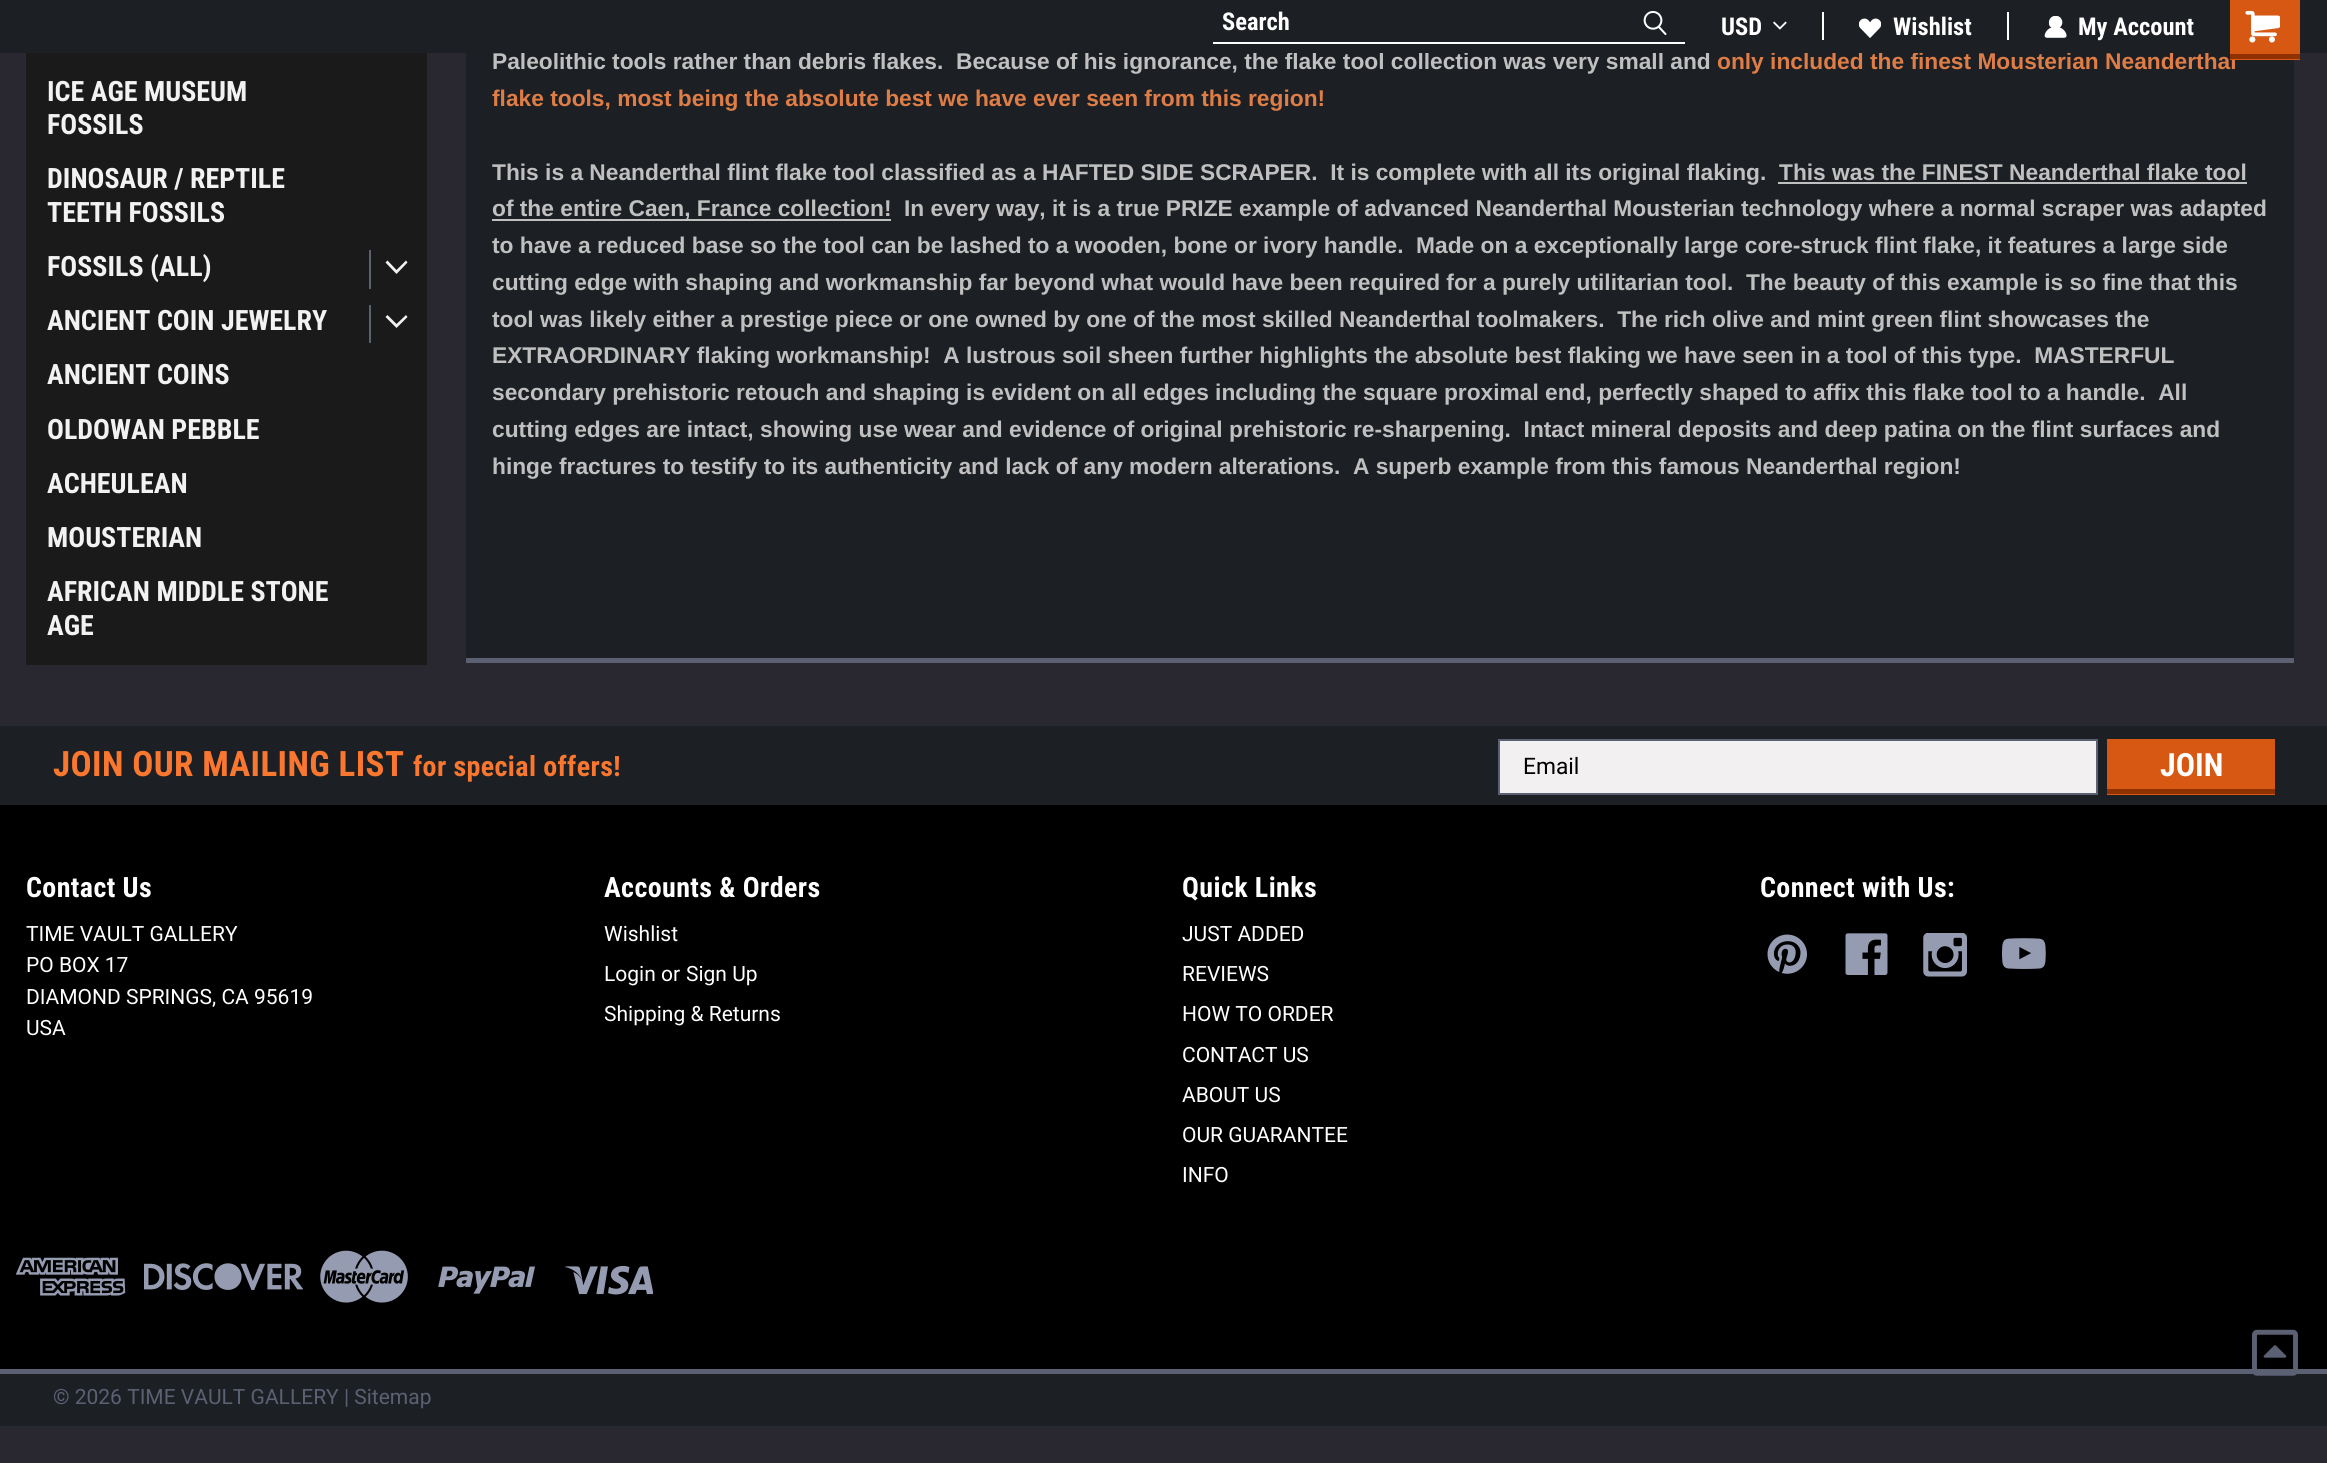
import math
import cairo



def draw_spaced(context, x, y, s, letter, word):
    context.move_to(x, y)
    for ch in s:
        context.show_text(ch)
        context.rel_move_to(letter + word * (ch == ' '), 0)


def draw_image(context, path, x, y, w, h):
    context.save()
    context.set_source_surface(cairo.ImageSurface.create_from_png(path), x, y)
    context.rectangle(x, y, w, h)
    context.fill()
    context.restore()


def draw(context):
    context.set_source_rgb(41 / 255, 40 / 255, 49 / 255)
    context.paint()
    context.set_source_rgb(26 / 255, 26 / 255, 26 / 255)
    context.rectangle(26, 53, 401, 612)
    context.fill()
    context.set_source_rgb(91 / 255, 96 / 255, 115 / 255)
    context.rectangle(369, 250, 2, 39)
    context.fill()
    context.set_source_rgb(243 / 255, 242 / 255, 242 / 255)
    context.new_path()
    context.move_to(407.5, 262.5)
    context.line_to(396.5, 274)
    context.line_to(385.5, 262.5)
    context.line_to(387.5, 260.5)
    context.line_to(396.5, 270)
    context.line_to(406, 260.5)
    context.close_path()
    context.fill()
    context.set_source_rgb(91 / 255, 96 / 255, 115 / 255)
    context.rectangle(369, 305, 2, 38)
    context.fill()
    context.set_source_rgb(243 / 255, 242 / 255, 242 / 255)
    context.new_path()
    context.move_to(407.5, 317)
    context.line_to(396.5, 328)
    context.line_to(385.5, 317)
    context.line_to(387.5, 315)
    context.line_to(396.5, 324)
    context.line_to(406, 315)
    context.close_path()
    context.fill()
    context.set_source_rgb(28 / 255, 31 / 255, 36 / 255)
    context.rectangle(466, 53, 1828, 605)
    context.fill()
    context.set_source_rgb(91 / 255, 96 / 255, 115 / 255)
    context.rectangle(466, 658, 1828, 5)
    context.fill()
    context.set_source_rgb(192 / 255, 192 / 255, 192 / 255)
    context.rectangle(1778, 182, 469, 2)
    context.fill()
    context.rectangle(492, 219, 399, 2)
    context.fill()
    context.set_source_rgb(0, 0, 0)
    context.rectangle(0, 805, 2327, 564)
    context.fill()
    context.set_source_rgb(28 / 255, 31 / 255, 36 / 255)
    context.rectangle(0, 726, 2327, 79)
    context.fill()
    context.set_source_rgb(242 / 255, 240 / 255, 240 / 255)
    context.rectangle(1499, 740, 598, 54)
    context.fill_preserve()
    context.set_source_rgb(91 / 255, 96 / 255, 115 / 255)
    context.stroke()
    context.set_source_rgb(215 / 255, 88 / 255, 19 / 255)
    context.rectangle(2107, 739, 168, 56)
    context.fill()
    context.set_source_rgb(143 / 255, 50 / 255, 0)
    context.rectangle(2107, 789, 168, 5)
    context.fill()
    draw_image(context, "images/6.png", 1767, 934, 40, 40)
    draw_image(context, "images/7.png", 1845, 933, 43, 42)
    draw_image(context, "images/8.png", 1923, 933, 44, 44)
    draw_image(context, "images/9.png", 2002, 938, 44, 31)
    draw_image(context, "images/10.png", 16, 1257, 110, 39)
    draw_image(context, "images/11.png", 144, 1263, 159, 28)
    draw_image(context, "images/12.png", 320, 1250, 88, 53)
    draw_image(context, "images/13.png", 438, 1266, 97, 28)
    draw_image(context, "images/14.png", 565, 1265, 88, 30)
    context.set_source_rgb(28 / 255, 31 / 255, 36 / 255)
    context.rectangle(0, 1374, 2327, 52)
    context.fill()
    context.set_source_rgb(91 / 255, 96 / 255, 115 / 255)
    context.rectangle(0, 1369, 2327, 5)
    context.fill()
    draw_image(context, "images/15.png", 2252, 1329, 46, 47)
    context.select_font_face("Roboto Condensed", cairo.FontSlant.NORMAL, cairo.FontWeight.BOLD)
    context.set_font_size(28)
    context.set_source_rgb(243 / 255, 242 / 255, 242 / 255)
    context.move_to(47, 101)
    context.show_text("ICE AGE MUSEUM")
    context.move_to(47, 134)
    context.show_text("FOSSILS")
    context.move_to(47, 188)
    context.show_text("DINOSAUR / REPTILE")
    context.move_to(47, 222)
    context.show_text("TEETH FOSSILS")
    context.move_to(47, 276)
    context.show_text("FOSSILS (ALL)")
    context.move_to(47, 330)
    context.show_text("ANCIENT COIN JEWELRY")
    context.move_to(47, 384)
    context.show_text("ANCIENT COINS")
    context.move_to(47, 439)
    context.show_text("OLDOWAN PEBBLE")
    context.move_to(47, 493)
    context.show_text("ACHEULEAN")
    context.move_to(47, 547)
    context.show_text("MOUSTERIAN")
    context.move_to(47, 601)
    context.show_text("AFRICAN MIDDLE STONE")
    context.move_to(47, 635)
    context.show_text("AGE")
    context.select_font_face("Liberation Sans", cairo.FontSlant.NORMAL, cairo.FontWeight.BOLD)
    context.set_font_size(22.75)
    context.set_source_rgb(192 / 255, 192 / 255, 192 / 255)
    context.move_to(492, 69)
    context.show_text("Paleolithic tools rather than debris flakes.  Because of his ignorance, the flake tool collection was very small and")
    context.set_source_rgb(223 / 255, 125 / 255, 71 / 255)
    context.move_to(1717, 69)
    context.show_text("only included the finest Mousterian Neanderthal")
    context.set_source_rgb(28 / 255, 31 / 255, 36 / 255)
    context.rectangle(0, 0, 2327, 53)
    context.fill()
    draw_image(context, "images/1.png", 1643, 11, 24, 24)
    context.select_font_face("Roboto Condensed", cairo.FontSlant.NORMAL, cairo.FontWeight.BOLD)
    context.set_font_size(24.5)
    context.set_source_rgb(1, 1, 1)
    context.move_to(1222, 30)
    context.show_text("Search")
    context.rectangle(1213, 42, 472, 2)
    context.fill()
    draw_image(context, "images/2.png", 1773, 21, 14, 9)
    context.move_to(1721, 35)
    context.show_text("USD")
    context.set_source_rgb(215 / 255, 88 / 255, 19 / 255)
    context.rectangle(2230, 0, 70, 60)
    context.fill()
    draw_image(context, "images/5.png", 2245, 10, 35, 33)
    context.set_source_rgb(143 / 255, 50 / 255, 0)
    context.rectangle(2230, 54, 70, 5)
    context.fill()
    draw_image(context, "images/4.png", 2044, 16, 23, 22)
    context.set_source_rgb(1, 1, 1)
    context.move_to(2078, 35)
    context.show_text("My Account")
    draw_image(context, "images/3.png", 1859, 18, 22, 20)
    context.move_to(1893, 35)
    context.show_text("Wishlist")
    context.rectangle(2007, 12, 2, 28)
    context.fill()
    context.rectangle(1822, 12, 2, 28)
    context.fill()
    context.select_font_face("Liberation Sans", cairo.FontSlant.NORMAL, cairo.FontWeight.BOLD)
    context.set_font_size(22.75)
    context.set_source_rgb(223 / 255, 125 / 255, 71 / 255)
    context.move_to(492, 106)
    context.show_text("flake tools, most being the absolute best we have ever seen from this region!")
    context.set_source_rgb(192 / 255, 192 / 255, 192 / 255)
    context.move_to(492, 180)
    context.show_text("This is a Neanderthal flint flake tool classified as a HAFTED SIDE SCRAPER.  It is complete with all its original flaking.")
    context.move_to(1779, 180)
    context.show_text("This was the FINEST Neanderthal flake tool")
    context.move_to(492, 216)
    context.show_text("of the entire Caen, France collection!")
    context.move_to(904, 216)
    context.show_text("In every way, it is a true PRIZE example of advanced Neanderthal Mousterian technology where a normal scraper was adapted")
    context.move_to(492, 253)
    context.show_text("to have a reduced base so the tool can be lashed to a wooden, bone or ivory handle.  Made on a exceptionally large core-struck flint flake, it features a large side")
    context.move_to(492, 290)
    context.show_text("cutting edge with shaping and workmanship far beyond what would have been required for a purely utilitarian tool.  The beauty of this example is so fine that this")
    context.move_to(492, 327)
    context.show_text("tool was likely either a prestige piece or one owned by one of the most skilled Neanderthal toolmakers.  The rich olive and mint green flint showcases the")
    context.move_to(492, 363)
    context.show_text("EXTRAORDINARY flaking workmanship!  A lustrous soil sheen further highlights the absolute best flaking we have seen in a tool of this type.  MASTERFUL")
    context.move_to(492, 400)
    context.show_text("secondary prehistoric retouch and shaping is evident on all edges including the square proximal end, perfectly shaped to affix this flake tool to a handle.  All")
    context.move_to(492, 437)
    context.show_text("cutting edges are intact, showing use wear and evidence of original prehistoric re-sharpening.  Intact mineral deposits and deep patina on the flint surfaces and")
    context.move_to(492, 474)
    context.show_text("hinge fractures to testify to its authenticity and lack of any modern alterations.  A superb example from this famous Neanderthal region!")
    context.select_font_face("Roboto Condensed", cairo.FontSlant.NORMAL, cairo.FontWeight.BOLD)
    context.set_font_size(35)
    context.set_source_rgb(250 / 255, 119 / 255, 47 / 255)
    draw_spaced(context, 53, 776, "JOIN OUR MAILING LIST", 0.4, 0)
    context.set_font_size(28)
    draw_spaced(context, 413, 776, "for special offers!", 0.4, 0)
    context.select_font_face("Roboto")
    context.set_font_size(22.75)
    context.set_source_rgb(0, 0, 0)
    context.move_to(1523, 774)
    context.show_text("Email")
    context.select_font_face("Roboto Condensed", cairo.FontSlant.NORMAL, cairo.FontWeight.BOLD)
    context.set_font_size(32)
    context.set_source_rgb(1, 1, 1)
    context.move_to(2160, 776)
    context.show_text("JOIN")
    context.set_font_size(28)
    draw_spaced(context, 26, 897, "Contact Us", 0.4, 0)
    context.select_font_face("Roboto")
    context.set_font_size(21)
    context.move_to(26, 941)
    context.show_text("TIME VAULT GALLERY")
    context.move_to(26, 972)
    context.show_text("PO BOX 17")
    context.move_to(26, 1004)
    context.show_text("DIAMOND SPRINGS, CA 95619")
    context.move_to(26, 1035)
    context.show_text("USA")
    context.select_font_face("Roboto Condensed", cairo.FontSlant.NORMAL, cairo.FontWeight.BOLD)
    context.set_font_size(28)
    draw_spaced(context, 604, 897, "Accounts & Orders", 0.4, 0)
    context.select_font_face("Roboto")
    context.set_font_size(21)
    context.move_to(604, 941)
    context.show_text("Wishlist")
    context.move_to(604, 981)
    context.show_text("Login or")
    context.move_to(686, 981)
    context.show_text("Sign Up")
    context.move_to(604, 1021)
    context.show_text("Shipping & Returns")
    context.select_font_face("Roboto Condensed", cairo.FontSlant.NORMAL, cairo.FontWeight.BOLD)
    context.set_font_size(28)
    draw_spaced(context, 1182, 897, "Quick Links", 0.4, 0)
    context.select_font_face("Roboto")
    context.set_font_size(21)
    context.move_to(1182, 941)
    context.show_text("JUST ADDED")
    context.move_to(1182, 981)
    context.show_text("REVIEWS")
    context.move_to(1182, 1021)
    context.show_text("HOW TO ORDER")
    context.move_to(1182, 1062)
    context.show_text("CONTACT US")
    context.move_to(1182, 1102)
    context.show_text("ABOUT US")
    context.move_to(1182, 1142)
    context.show_text("OUR GUARANTEE")
    context.move_to(1182, 1182)
    context.show_text("INFO")
    context.select_font_face("Roboto Condensed", cairo.FontSlant.NORMAL, cairo.FontWeight.BOLD)
    context.set_font_size(28)
    draw_spaced(context, 1760, 897, "Connect with Us:", 0.4, 0)
    context.select_font_face("Roboto")
    context.set_font_size(21)
    context.set_source_rgb(91 / 255, 96 / 255, 115 / 255)
    context.move_to(53, 1404)
    context.show_text("© 2026 TIME VAULT GALLERY | Sitemap")


surface = cairo.ImageSurface(cairo.Format.RGB24, 2327, 1463)
context = cairo.Context(surface)
options = cairo.FontOptions()
options.set_hint_metrics(cairo.HintMetrics.OFF)
options.set_hint_style(cairo.HintStyle.NONE)
context.set_font_options(options)
context.set_miter_limit(4)
draw(context)
surface.write_to_png("out.png")
